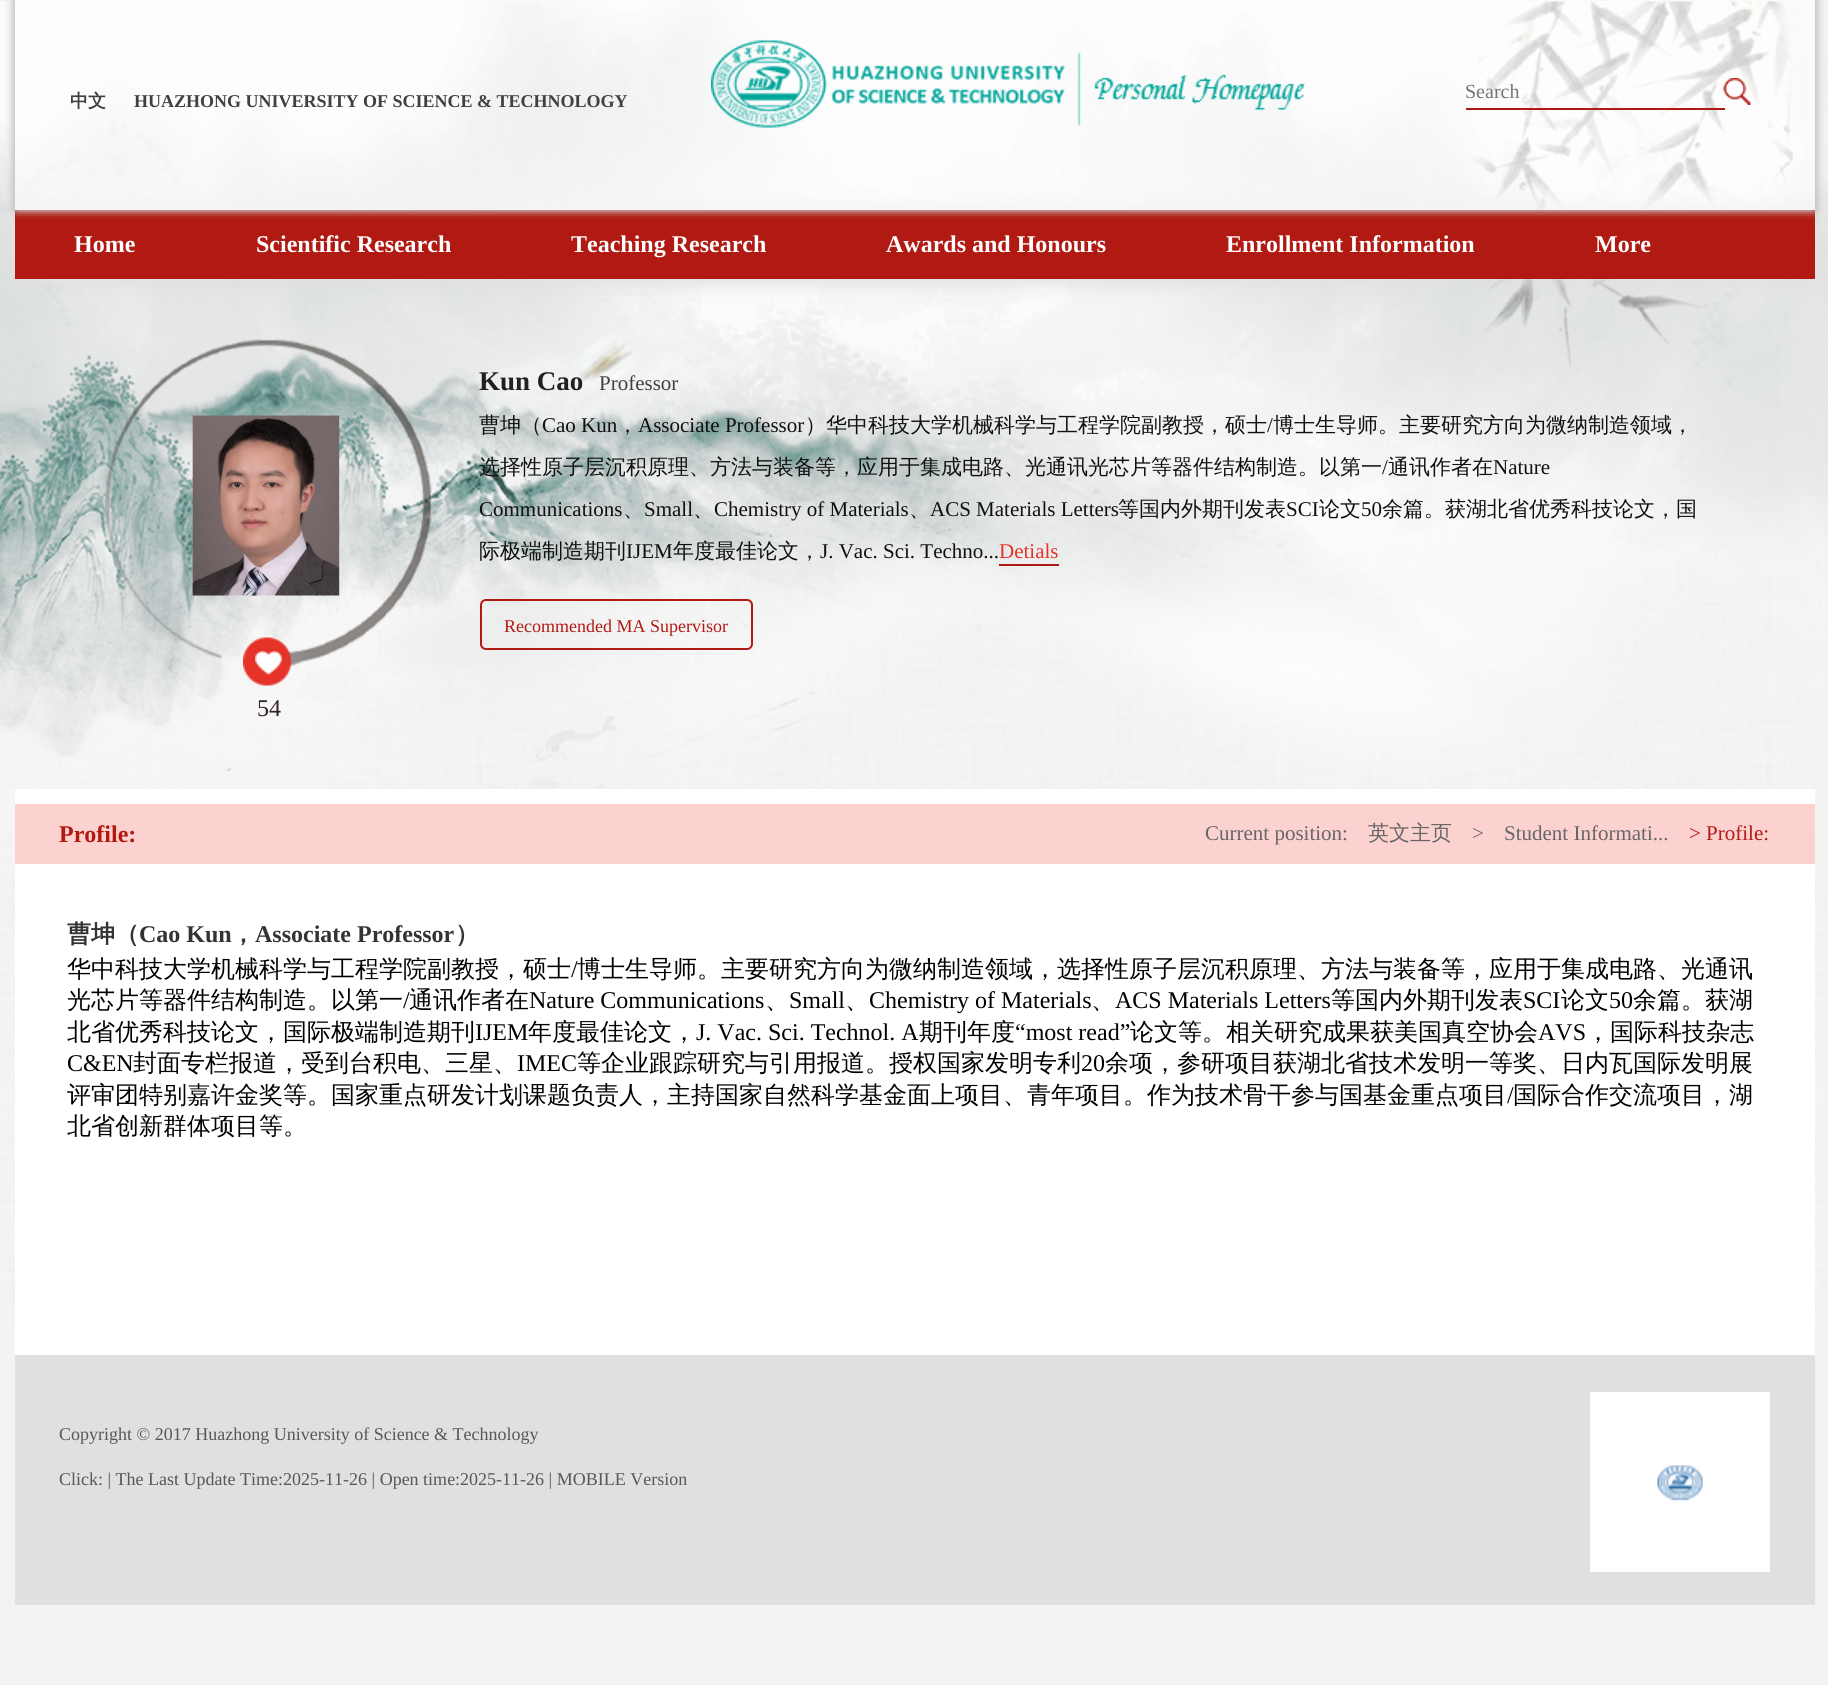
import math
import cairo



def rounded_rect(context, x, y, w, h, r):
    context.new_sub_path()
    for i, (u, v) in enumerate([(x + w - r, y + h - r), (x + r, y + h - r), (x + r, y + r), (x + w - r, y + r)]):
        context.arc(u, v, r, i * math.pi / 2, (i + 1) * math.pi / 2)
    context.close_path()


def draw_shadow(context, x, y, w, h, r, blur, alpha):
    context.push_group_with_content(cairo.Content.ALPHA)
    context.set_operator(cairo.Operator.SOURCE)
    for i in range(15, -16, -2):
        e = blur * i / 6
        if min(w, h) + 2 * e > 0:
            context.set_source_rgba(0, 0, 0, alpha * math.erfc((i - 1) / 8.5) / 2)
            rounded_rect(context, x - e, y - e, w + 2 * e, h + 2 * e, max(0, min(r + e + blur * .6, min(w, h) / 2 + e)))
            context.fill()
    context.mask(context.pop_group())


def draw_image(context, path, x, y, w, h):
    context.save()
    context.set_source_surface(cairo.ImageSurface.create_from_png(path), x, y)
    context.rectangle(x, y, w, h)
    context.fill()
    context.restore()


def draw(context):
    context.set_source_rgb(243 / 255, 243 / 255, 243 / 255)
    context.paint()
    draw_image(context, "images/1.png", 0, 1, 1828, 1325)
    context.set_source_rgb(224 / 255, 224 / 255, 224 / 255)
    draw_shadow(context, 14, 210, 1800, 69, 0, 11, 1)
    draw_shadow(context, 17, 210, 1800, 69, 0, 11, 1)
    context.set_source_rgb(177 / 255, 26 / 255, 19 / 255)
    context.rectangle(15, 210, 1800, 69)
    context.fill()
    context.save()
    context.set_fill_rule(cairo.FillRule.EVEN_ODD)
    context.new_path()
    context.move_to(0, 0)
    context.line_to(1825, 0)
    context.line_to(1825, 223)
    context.line_to(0, 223)
    context.close_path()
    context.move_to(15, 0)
    context.line_to(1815, 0)
    context.line_to(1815, 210)
    context.line_to(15, 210)
    context.close_path()
    context.clip()
    context.set_source_rgb(195 / 255, 195 / 255, 195 / 255)
    draw_shadow(context, 12, 0, 1800, 210, 0, 4, 1)
    context.restore()
    context.save()
    context.set_fill_rule(cairo.FillRule.EVEN_ODD)
    context.new_path()
    context.move_to(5, 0)
    context.line_to(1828, 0)
    context.line_to(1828, 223)
    context.line_to(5, 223)
    context.close_path()
    context.move_to(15, 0)
    context.line_to(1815, 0)
    context.line_to(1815, 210)
    context.line_to(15, 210)
    context.close_path()
    context.clip()
    context.set_source_rgb(195 / 255, 195 / 255, 195 / 255)
    draw_shadow(context, 18, 0, 1800, 210, 0, 4, 1)
    context.restore()
    context.set_source_rgba(1, 1, 1, 0.6)
    context.rectangle(15, 0, 1800, 210)
    context.fill()
    draw_image(context, "images/2.png", 711, 40, 594, 88)
    context.set_source_rgb(177 / 255, 26 / 255, 19 / 255)
    context.rectangle(1466, 108, 259, 2)
    context.fill()
    draw_image(context, "images/3.png", 1723, 78, 28, 27)
    context.rectangle(999, 564, 60, 2)
    context.fill()
    rounded_rect(context, 481, 600, 271, 49, 5)
    context.stroke()
    draw_image(context, "images/4.png", 105, 339, 327, 328)
    draw_image(context, "images/5.png", 192, 415, 148, 181)
    draw_image(context, "images/6.png", 243, 637, 48, 49)
    draw_image(context, "images/7.png", 255, 651, 27, 24)
    context.set_source_rgb(1, 1, 1)
    context.rectangle(15, 789, 1800, 566)
    context.fill()
    context.set_source_rgb(252 / 255, 210 / 255, 208 / 255)
    context.rectangle(15, 804, 1800, 60)
    context.fill()
    context.set_source_rgb(224 / 255, 224 / 255, 224 / 255)
    context.rectangle(15, 1355, 1800, 250)
    context.fill()
    context.set_source_rgb(1, 1, 1)
    context.rectangle(1590, 1392, 180, 180)
    context.fill()
    draw_image(context, "images/8.png", 1657, 1465, 46, 36)
    context.select_font_face("WenQuanYi Zen Hei", cairo.FontSlant.NORMAL, cairo.FontWeight.BOLD)
    context.set_font_size(18)
    context.set_source_rgb(64 / 255, 64 / 255, 64 / 255)
    context.move_to(70, 107)
    context.show_text("中文")
    context.select_font_face("Liberation Serif", cairo.FontSlant.NORMAL, cairo.FontWeight.BOLD)
    context.move_to(134, 107)
    context.show_text("HUAZHONG UNIVERSITY OF SCIENCE & TECHNOLOGY")
    context.select_font_face("Liberation Serif")
    context.set_font_size(20)
    context.set_source_rgb(117 / 255, 117 / 255, 117 / 255)
    context.move_to(1465, 98)
    context.show_text("Search")
    context.select_font_face("Liberation Serif", cairo.FontSlant.NORMAL, cairo.FontWeight.BOLD)
    context.set_font_size(24)
    context.set_source_rgb(1, 1, 1)
    context.move_to(74, 252)
    context.show_text("Home")
    context.move_to(256, 252)
    context.show_text("Scientific Research")
    context.move_to(571, 252)
    context.show_text("Teaching Research")
    context.move_to(886, 252)
    context.show_text("Awards and Honours")
    context.move_to(1226, 252)
    context.show_text("Enrollment Information")
    context.move_to(1595, 252)
    context.show_text("More")
    context.set_font_size(27)
    context.set_source_rgb(32 / 255, 32 / 255, 32 / 255)
    context.move_to(479, 390)
    context.show_text("Kun Cao")
    context.select_font_face("Liberation Serif")
    context.set_font_size(21)
    context.set_source_rgb(64 / 255, 64 / 255, 64 / 255)
    context.move_to(599, 390)
    context.show_text("Professor")
    context.select_font_face("WenQuanYi Zen Hei Medium")
    context.set_source_rgb(16 / 255, 16 / 255, 16 / 255)
    context.move_to(479, 432)
    context.show_text("曹坤（")
    context.select_font_face("Liberation Serif")
    context.move_to(542, 432)
    context.show_text("Cao Kun")
    context.select_font_face("WenQuanYi Zen Hei Medium")
    context.move_to(617, 432)
    context.show_text("，")
    context.select_font_face("Liberation Serif")
    context.move_to(638, 432)
    context.show_text("Associate Professor")
    context.select_font_face("WenQuanYi Zen Hei Medium")
    context.move_to(805, 432)
    context.show_text("）华中科技大学机械科学与工程学院副教授，硕士")
    context.select_font_face("Liberation Serif")
    context.move_to(1267, 432)
    context.show_text("/")
    context.select_font_face("WenQuanYi Zen Hei Medium")
    context.move_to(1273, 432)
    context.show_text("博士生导师。主要研究方向为微纳制造领域，")
    context.move_to(479, 474)
    context.show_text("选择性原子层沉积原理、方法与装备等，应用于集成电路、光通讯光芯片等器件结构制造。以第一")
    context.select_font_face("Liberation Serif")
    context.move_to(1382, 474)
    context.show_text("/")
    context.select_font_face("WenQuanYi Zen Hei Medium")
    context.move_to(1388, 474)
    context.show_text("通讯作者在")
    context.select_font_face("Liberation Serif")
    context.move_to(1493, 474)
    context.show_text("Nature")
    context.move_to(479, 516)
    context.show_text("Communications")
    context.select_font_face("WenQuanYi Zen Hei Medium")
    context.move_to(623, 516)
    context.show_text("、")
    context.select_font_face("Liberation Serif")
    context.move_to(644, 516)
    context.show_text("Small")
    context.select_font_face("WenQuanYi Zen Hei Medium")
    context.move_to(693, 516)
    context.show_text("、")
    context.select_font_face("Liberation Serif")
    context.move_to(714, 516)
    context.show_text("Chemistry of Materials")
    context.select_font_face("WenQuanYi Zen Hei Medium")
    context.move_to(909, 516)
    context.show_text("、")
    context.select_font_face("Liberation Serif")
    context.move_to(930, 516)
    context.show_text("ACS Materials Letters")
    context.select_font_face("WenQuanYi Zen Hei Medium")
    context.move_to(1118, 516)
    context.show_text("等国内外期刊发表")
    context.select_font_face("Liberation Serif")
    context.move_to(1286, 516)
    context.show_text("SCI")
    context.select_font_face("WenQuanYi Zen Hei Medium")
    context.move_to(1319, 516)
    context.show_text("论文")
    context.select_font_face("Liberation Serif")
    context.move_to(1361, 516)
    context.show_text("50")
    context.select_font_face("WenQuanYi Zen Hei Medium")
    context.move_to(1382, 516)
    context.show_text("余篇。获湖北省优秀科技论文，国")
    context.move_to(479, 558)
    context.show_text("际极端制造期刊")
    context.select_font_face("Liberation Serif")
    context.move_to(626, 558)
    context.show_text("IJEM")
    context.select_font_face("WenQuanYi Zen Hei Medium")
    context.move_to(673, 558)
    context.show_text("年度最佳论文，")
    context.select_font_face("Liberation Serif")
    context.move_to(820, 558)
    context.show_text("J. Vac. Sci. Techno...")
    context.set_source_rgb(229 / 255, 51 / 255, 42 / 255)
    context.move_to(999, 558)
    context.show_text("Detials")
    context.set_font_size(18)
    context.set_source_rgb(177 / 255, 26 / 255, 19 / 255)
    context.move_to(504, 632)
    context.show_text("Recommended MA Supervisor")
    context.set_font_size(24)
    context.set_source_rgb(50 / 255, 32 / 255, 36 / 255)
    context.move_to(257, 716)
    context.show_text("54")
    context.select_font_face("Liberation Serif", cairo.FontSlant.NORMAL, cairo.FontWeight.BOLD)
    context.set_source_rgb(177 / 255, 26 / 255, 19 / 255)
    context.move_to(59, 842)
    context.show_text("Profile:")
    context.select_font_face("Liberation Serif")
    context.set_font_size(21)
    context.set_source_rgb(102 / 255, 102 / 255, 102 / 255)
    context.move_to(1205, 840)
    context.show_text("Current position:")
    context.select_font_face("WenQuanYi Zen Hei Medium")
    context.move_to(1368, 840)
    context.show_text("英文主页")
    context.select_font_face("Liberation Serif")
    context.move_to(1472, 840)
    context.show_text(">")
    context.move_to(1504, 840)
    context.show_text("Student Informati...")
    context.set_source_rgb(177 / 255, 26 / 255, 19 / 255)
    context.move_to(1689, 840)
    context.show_text("> Profile:")
    context.select_font_face("WenQuanYi Zen Hei", cairo.FontSlant.NORMAL, cairo.FontWeight.BOLD)
    context.set_font_size(24)
    context.set_source_rgb(51 / 255, 51 / 255, 51 / 255)
    context.move_to(67, 942)
    context.show_text("曹坤（")
    context.select_font_face("Liberation Serif", cairo.FontSlant.NORMAL, cairo.FontWeight.BOLD)
    context.move_to(139, 942)
    context.show_text("Cao Kun")
    context.select_font_face("WenQuanYi Zen Hei", cairo.FontSlant.NORMAL, cairo.FontWeight.BOLD)
    context.move_to(231, 942)
    context.show_text("，")
    context.select_font_face("Liberation Serif", cairo.FontSlant.NORMAL, cairo.FontWeight.BOLD)
    context.move_to(255, 942)
    context.show_text("Associate Professor")
    context.select_font_face("WenQuanYi Zen Hei", cairo.FontSlant.NORMAL, cairo.FontWeight.BOLD)
    context.move_to(455, 942)
    context.show_text("）")
    context.select_font_face("WenQuanYi Zen Hei Medium")
    context.set_source_rgb(0, 0, 0)
    context.move_to(67, 977)
    context.show_text("华中科技大学机械科学与工程学院副教授，硕士")
    context.select_font_face("Liberation Serif")
    context.move_to(571, 977)
    context.show_text("/")
    context.select_font_face("WenQuanYi Zen Hei Medium")
    context.move_to(577, 977)
    context.show_text("博士生导师。主要研究方向为微纳制造领域，选择性原子层沉积原理、方法与装备等，应用于集成电路、光通讯")
    context.move_to(67, 1008)
    context.show_text("光芯片等器件结构制造。以第一")
    context.select_font_face("Liberation Serif")
    context.move_to(403, 1008)
    context.show_text("/")
    context.select_font_face("WenQuanYi Zen Hei Medium")
    context.move_to(409, 1008)
    context.show_text("通讯作者在")
    context.select_font_face("Liberation Serif")
    context.move_to(529, 1008)
    context.show_text("Nature Communications")
    context.select_font_face("WenQuanYi Zen Hei Medium")
    context.move_to(765, 1008)
    context.show_text("、")
    context.select_font_face("Liberation Serif")
    context.move_to(789, 1008)
    context.show_text("Small")
    context.select_font_face("WenQuanYi Zen Hei Medium")
    context.move_to(845, 1008)
    context.show_text("、")
    context.select_font_face("Liberation Serif")
    context.move_to(869, 1008)
    context.show_text("Chemistry of Materials")
    context.select_font_face("WenQuanYi Zen Hei Medium")
    context.move_to(1091, 1008)
    context.show_text("、")
    context.select_font_face("Liberation Serif")
    context.move_to(1115, 1008)
    context.show_text("ACS Materials Letters")
    context.select_font_face("WenQuanYi Zen Hei Medium")
    context.move_to(1331, 1008)
    context.show_text("等国内外期刊发表")
    context.select_font_face("Liberation Serif")
    context.move_to(1523, 1008)
    context.show_text("SCI")
    context.select_font_face("WenQuanYi Zen Hei Medium")
    context.move_to(1561, 1008)
    context.show_text("论文")
    context.select_font_face("Liberation Serif")
    context.move_to(1609, 1008)
    context.show_text("50")
    context.select_font_face("WenQuanYi Zen Hei Medium")
    context.move_to(1633, 1008)
    context.show_text("余篇。获湖")
    context.move_to(67, 1040)
    context.show_text("北省优秀科技论文，国际极端制造期刊")
    context.select_font_face("Liberation Serif")
    context.move_to(475, 1040)
    context.show_text("IJEM")
    context.select_font_face("WenQuanYi Zen Hei Medium")
    context.move_to(528, 1040)
    context.show_text("年度最佳论文，")
    context.select_font_face("Liberation Serif")
    context.move_to(696, 1040)
    context.show_text("J. Vac. Sci. Technol. A")
    context.select_font_face("WenQuanYi Zen Hei Medium")
    context.move_to(919, 1040)
    context.show_text("期刊年度")
    context.select_font_face("Liberation Serif")
    context.move_to(1015, 1040)
    context.show_text("“most read”")
    context.select_font_face("WenQuanYi Zen Hei Medium")
    context.move_to(1130, 1040)
    context.show_text("论文等。相关研究成果获美国真空协会")
    context.select_font_face("Liberation Serif")
    context.move_to(1538, 1040)
    context.show_text("AVS")
    context.select_font_face("WenQuanYi Zen Hei Medium")
    context.move_to(1586, 1040)
    context.show_text("，国际科技杂志")
    context.select_font_face("Liberation Serif")
    context.move_to(67, 1071)
    context.show_text("C&EN")
    context.select_font_face("WenQuanYi Zen Hei Medium")
    context.move_to(133, 1071)
    context.show_text("封面专栏报道，受到台积电、三星、")
    context.select_font_face("Liberation Serif")
    context.move_to(517, 1071)
    context.show_text("IMEC")
    context.select_font_face("WenQuanYi Zen Hei Medium")
    context.move_to(577, 1071)
    context.show_text("等企业跟踪研究与引用报道。授权国家发明专利")
    context.select_font_face("Liberation Serif")
    context.move_to(1081, 1071)
    context.show_text("20")
    context.select_font_face("WenQuanYi Zen Hei Medium")
    context.move_to(1105, 1071)
    context.show_text("余项，参研项目获湖北省技术发明一等奖、日内瓦国际发明展")
    context.move_to(67, 1103)
    context.show_text("评审团特别嘉许金奖等。国家重点研发计划课题负责人，主持国家自然科学基金面上项目、青年项目。作为技术骨干参与国基金重点项目")
    context.select_font_face("Liberation Serif")
    context.move_to(1507, 1103)
    context.show_text("/")
    context.select_font_face("WenQuanYi Zen Hei Medium")
    context.move_to(1513, 1103)
    context.show_text("国际合作交流项目，湖")
    context.move_to(67, 1134)
    context.show_text("北省创新群体项目等。")
    context.select_font_face("Liberation Serif")
    context.set_font_size(18)
    context.set_source_rgb(89 / 255, 87 / 255, 87 / 255)
    context.move_to(59, 1440)
    context.show_text("Copyright © 2017 Huazhong University of Science & Technology")
    context.move_to(59, 1485)
    context.show_text("Click: | The Last Update Time:2025-11-26 | Open time:2025-11-26 | MOBILE Version")


surface = cairo.ImageSurface(cairo.Format.RGB24, 1828, 1685)
context = cairo.Context(surface)
options = cairo.FontOptions()
options.set_hint_metrics(cairo.HintMetrics.OFF)
options.set_hint_style(cairo.HintStyle.NONE)
context.set_font_options(options)
context.set_miter_limit(4)
draw(context)
surface.write_to_png("out.png")
